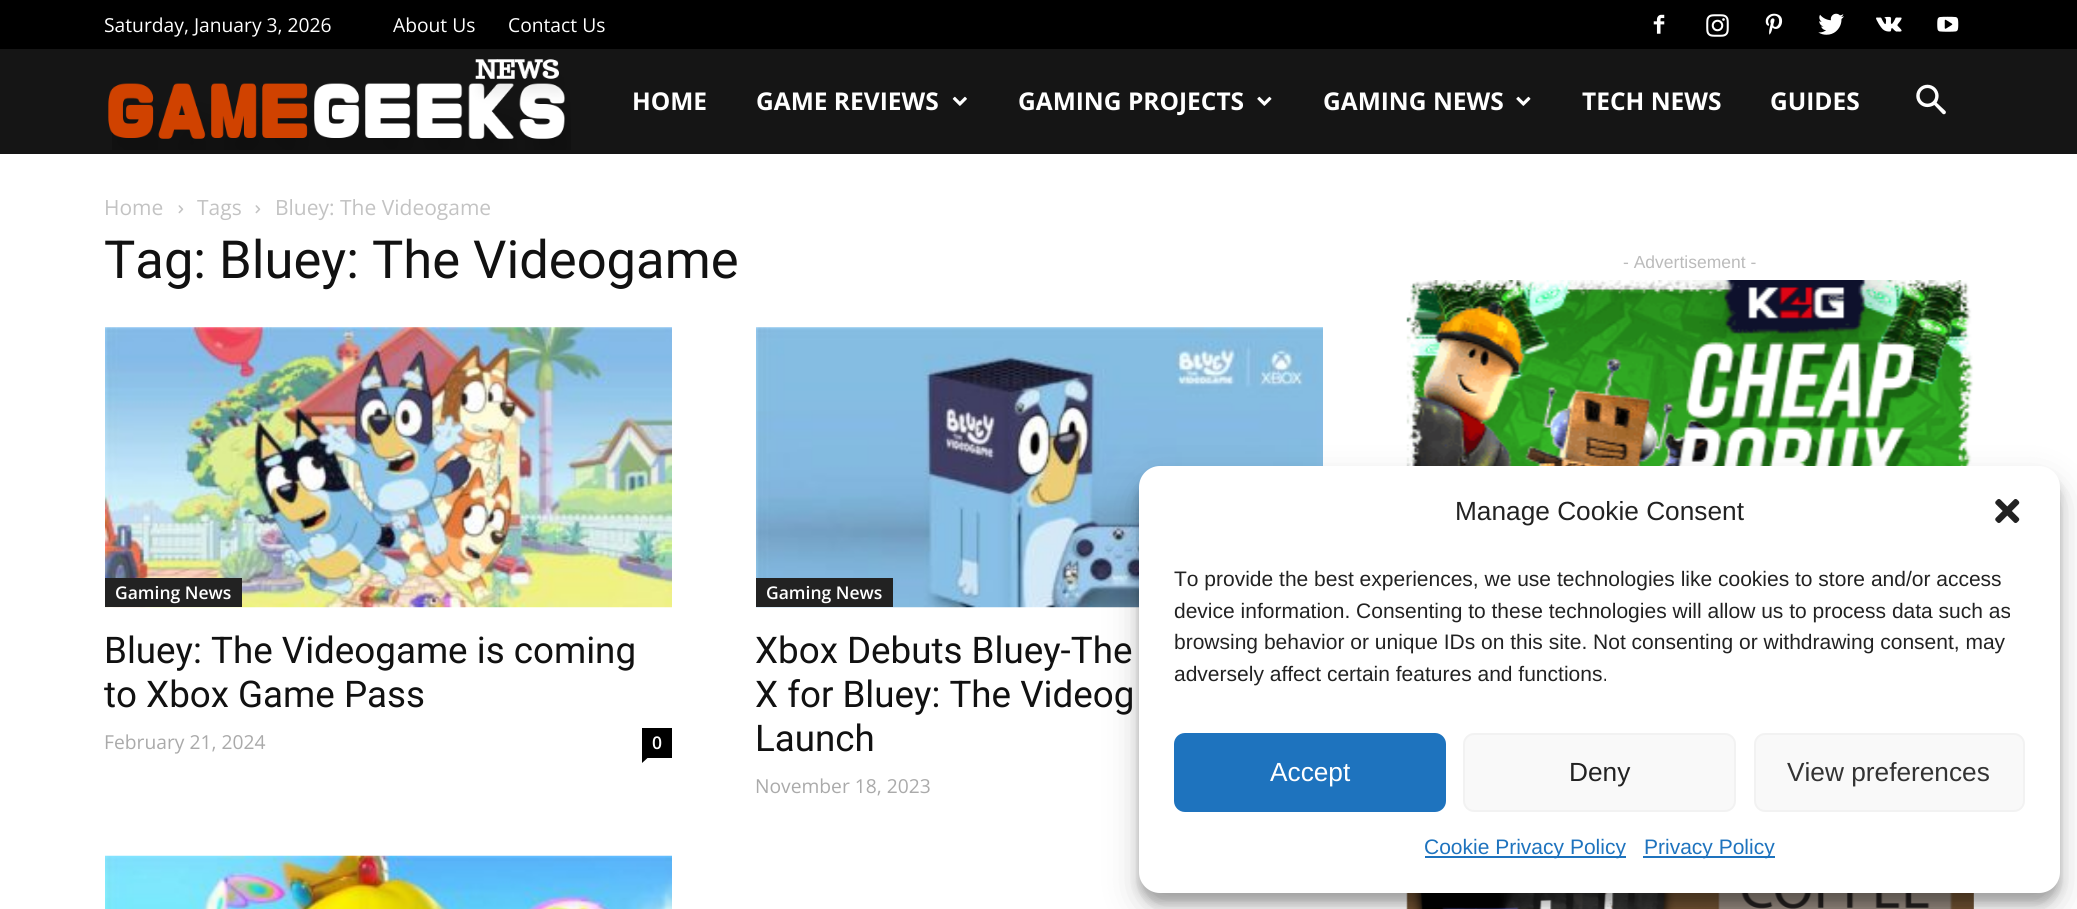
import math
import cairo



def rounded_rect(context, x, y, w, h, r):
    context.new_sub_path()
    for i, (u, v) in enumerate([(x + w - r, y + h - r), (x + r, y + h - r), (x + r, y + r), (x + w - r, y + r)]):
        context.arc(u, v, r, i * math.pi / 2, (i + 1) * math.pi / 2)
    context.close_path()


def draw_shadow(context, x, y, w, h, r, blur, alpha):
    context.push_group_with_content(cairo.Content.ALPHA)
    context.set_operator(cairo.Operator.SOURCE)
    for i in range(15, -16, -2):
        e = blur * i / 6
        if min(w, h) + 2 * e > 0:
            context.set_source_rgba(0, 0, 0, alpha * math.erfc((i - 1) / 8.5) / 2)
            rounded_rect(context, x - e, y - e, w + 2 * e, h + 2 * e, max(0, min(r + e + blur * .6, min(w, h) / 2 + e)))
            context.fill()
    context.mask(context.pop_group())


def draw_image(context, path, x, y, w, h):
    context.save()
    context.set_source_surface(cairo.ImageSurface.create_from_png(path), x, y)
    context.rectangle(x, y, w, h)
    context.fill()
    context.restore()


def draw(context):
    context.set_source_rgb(1, 1, 1)
    context.paint()
    context.set_source_rgb(0, 0, 0)
    context.rectangle(0, 0, 2077, 49)
    context.fill()
    draw_image(context, "images/1.png", 1653, 14, 12, 20)
    draw_image(context, "images/2.png", 1706, 14, 23, 23)
    draw_image(context, "images/3.png", 1765, 13, 18, 22)
    draw_image(context, "images/4.png", 1818, 13, 26, 22)
    draw_image(context, "images/5.png", 1876, 16, 26, 16)
    draw_image(context, "images/6.png", 1937, 16, 22, 16)
    context.set_source_rgb(21 / 255, 21 / 255, 21 / 255)
    context.rectangle(0, 49, 2077, 105)
    context.fill()
    draw_image(context, "images/7.png", 108, 59, 463, 91)
    draw_image(context, "images/8.png", 952, 96, 15, 10)
    draw_image(context, "images/9.png", 1257, 96, 15, 10)
    draw_image(context, "images/9.png", 1516, 96, 15, 10)
    draw_image(context, "images/10.png", 1916, 84, 30, 31)
    draw_image(context, "images/11.png", 178, 205, 6, 9)
    draw_image(context, "images/11.png", 255, 205, 6, 9)
    draw_image(context, "images/12.png", 105, 327, 567, 281)
    context.set_source_rgb(34 / 255, 34 / 255, 34 / 255)
    context.rectangle(105, 578, 137, 29)
    context.fill()
    context.set_source_rgb(0, 0, 0)
    context.rectangle(642, 728, 30, 30)
    context.fill()
    context.new_path()
    context.move_to(642, 758)
    context.line_to(647.5, 758)
    context.line_to(642, 763)
    context.close_path()
    context.fill()
    draw_image(context, "images/13.png", 756, 327, 567, 281)
    context.set_source_rgb(34 / 255, 34 / 255, 34 / 255)
    context.rectangle(756, 578, 137, 29)
    context.fill()
    draw_image(context, "images/14.png", 105, 855, 567, 54)
    draw_image(context, "images/15.png", 1406, 280, 568, 186)
    draw_image(context, "images/16.png", 1406, 893, 568, 16)
    context.set_source_rgb(0, 0, 0)
    draw_shadow(context, 1139, 476, 921, 427, 21, 5, 0.23)
    draw_shadow(context, 1139, 483, 921, 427, 21, 17.5, 0.19)
    context.set_source_rgb(1, 1, 1)
    rounded_rect(context, 1139, 466, 921, 427, 21)
    context.fill()
    draw_image(context, "images/17.png", 1995, 499, 25, 24)
    context.set_source_rgb(30 / 255, 115 / 255, 190 / 255)
    rounded_rect(context, 1175, 734, 270, 77, 10)
    context.fill_preserve()
    context.stroke()
    context.set_source_rgb(249 / 255, 249 / 255, 249 / 255)
    rounded_rect(context, 1464, 734, 271, 77, 10)
    context.fill_preserve()
    context.set_source_rgb(242 / 255, 242 / 255, 242 / 255)
    context.stroke()
    context.set_source_rgb(249 / 255, 249 / 255, 249 / 255)
    rounded_rect(context, 1755, 734, 269, 77, 10)
    context.fill_preserve()
    context.set_source_rgb(242 / 255, 242 / 255, 242 / 255)
    context.stroke()
    context.set_source_rgb(30 / 255, 115 / 255, 190 / 255)
    context.rectangle(1425, 856, 201, 2)
    context.fill()
    context.rectangle(1643, 856, 132, 2)
    context.fill()
    context.select_font_face("Open Sans")
    context.set_font_size(19.25)
    context.set_source_rgb(1, 1, 1)
    context.move_to(104, 32)
    context.show_text("Saturday, January 3, 2026")
    context.move_to(393, 32)
    context.show_text("About Us")
    context.move_to(508, 32)
    context.show_text("Contact Us")
    context.select_font_face("Open Sans", cairo.FontSlant.NORMAL, cairo.FontWeight.BOLD)
    context.set_font_size(24.5)
    context.move_to(632, 110)
    context.show_text("HOME")
    context.move_to(756, 110)
    context.show_text("GAME REVIEWS")
    context.move_to(1018, 110)
    context.show_text("GAMING PROJECTS")
    context.move_to(1323, 110)
    context.show_text("GAMING NEWS")
    context.move_to(1582, 110)
    context.show_text("TECH NEWS")
    context.move_to(1770, 110)
    context.show_text("GUIDES")
    context.select_font_face("Open Sans")
    context.set_font_size(21)
    context.set_source_rgb(195 / 255, 195 / 255, 195 / 255)
    context.move_to(104, 215)
    context.show_text("Home")
    context.move_to(197, 215)
    context.show_text("Tags")
    context.move_to(275, 215)
    context.show_text("Bluey: The Videogame")
    context.select_font_face("Roboto")
    context.set_font_size(52.5)
    context.set_source_rgb(17 / 255, 17 / 255, 17 / 255)
    context.move_to(104, 278)
    context.show_text("Tag: Bluey: The Videogame")
    context.select_font_face("Open Sans SemiBold")
    context.set_font_size(17.5)
    context.set_source_rgb(1, 1, 1)
    context.move_to(115, 599)
    context.show_text("Gaming News")
    context.select_font_face("Roboto")
    context.set_font_size(36.75)
    context.set_source_rgb(17 / 255, 17 / 255, 17 / 255)
    context.move_to(104, 663)
    context.show_text("Bluey: The Videogame is coming")
    context.move_to(104, 707)
    context.show_text("to Xbox Game Pass")
    context.select_font_face("Open Sans")
    context.set_font_size(19.25)
    context.set_source_rgb(170 / 255, 170 / 255, 170 / 255)
    context.move_to(104, 749)
    context.show_text("February 21, 2024")
    context.select_font_face("Open Sans SemiBold")
    context.set_font_size(17.5)
    context.set_source_rgb(1, 1, 1)
    context.move_to(652, 749)
    context.show_text("0")
    context.move_to(766, 599)
    context.show_text("Gaming News")
    context.select_font_face("Roboto")
    context.set_font_size(36.75)
    context.set_source_rgb(17 / 255, 17 / 255, 17 / 255)
    context.move_to(755, 663)
    context.show_text("Xbox Debuts Bluey-The")
    context.move_to(755, 707)
    context.show_text("X for Bluey: The Videog")
    context.move_to(755, 751)
    context.show_text("Launch")
    context.select_font_face("Open Sans")
    context.set_font_size(19.25)
    context.set_source_rgb(170 / 255, 170 / 255, 170 / 255)
    context.move_to(755, 793)
    context.show_text("November 18, 2023")
    context.select_font_face("Liberation Sans")
    context.set_font_size(17.5)
    context.set_source_rgb(187 / 255, 187 / 255, 187 / 255)
    context.move_to(1623, 268)
    context.show_text("- Advertisement -")
    context.set_font_size(26.25)
    context.set_source_rgb(34 / 255, 34 / 255, 34 / 255)
    context.move_to(1455, 520)
    context.show_text("Manage Cookie Consent")
    context.set_font_size(21)
    context.move_to(1174, 586)
    context.show_text("To provide the best experiences, we use technologies like cookies to store and/or access")
    context.move_to(1174, 618)
    context.show_text("device information. Consenting to these technologies will allow us to process data such as")
    context.move_to(1174, 649)
    context.show_text("browsing behavior or unique IDs on this site. Not consenting or withdrawing consent, may")
    context.move_to(1174, 681)
    context.show_text("adversely affect certain features and functions.")
    context.set_font_size(26.25)
    context.set_source_rgb(1, 1, 1)
    context.move_to(1270, 781)
    context.show_text("Accept")
    context.set_source_rgb(34 / 255, 34 / 255, 34 / 255)
    context.move_to(1569, 781)
    context.show_text("Deny")
    context.set_source_rgb(51 / 255, 51 / 255, 51 / 255)
    context.move_to(1787, 781)
    context.show_text("View preferences")
    context.set_font_size(21)
    context.set_source_rgb(30 / 255, 115 / 255, 190 / 255)
    context.move_to(1424, 854)
    context.show_text("Cookie Privacy Policy")
    context.move_to(1644, 854)
    context.show_text("Privacy Policy")


surface = cairo.ImageSurface(cairo.Format.RGB24, 2077, 909)
context = cairo.Context(surface)
options = cairo.FontOptions()
options.set_hint_metrics(cairo.HintMetrics.OFF)
options.set_hint_style(cairo.HintStyle.NONE)
context.set_font_options(options)
context.set_miter_limit(4)
draw(context)
surface.write_to_png("out.png")
